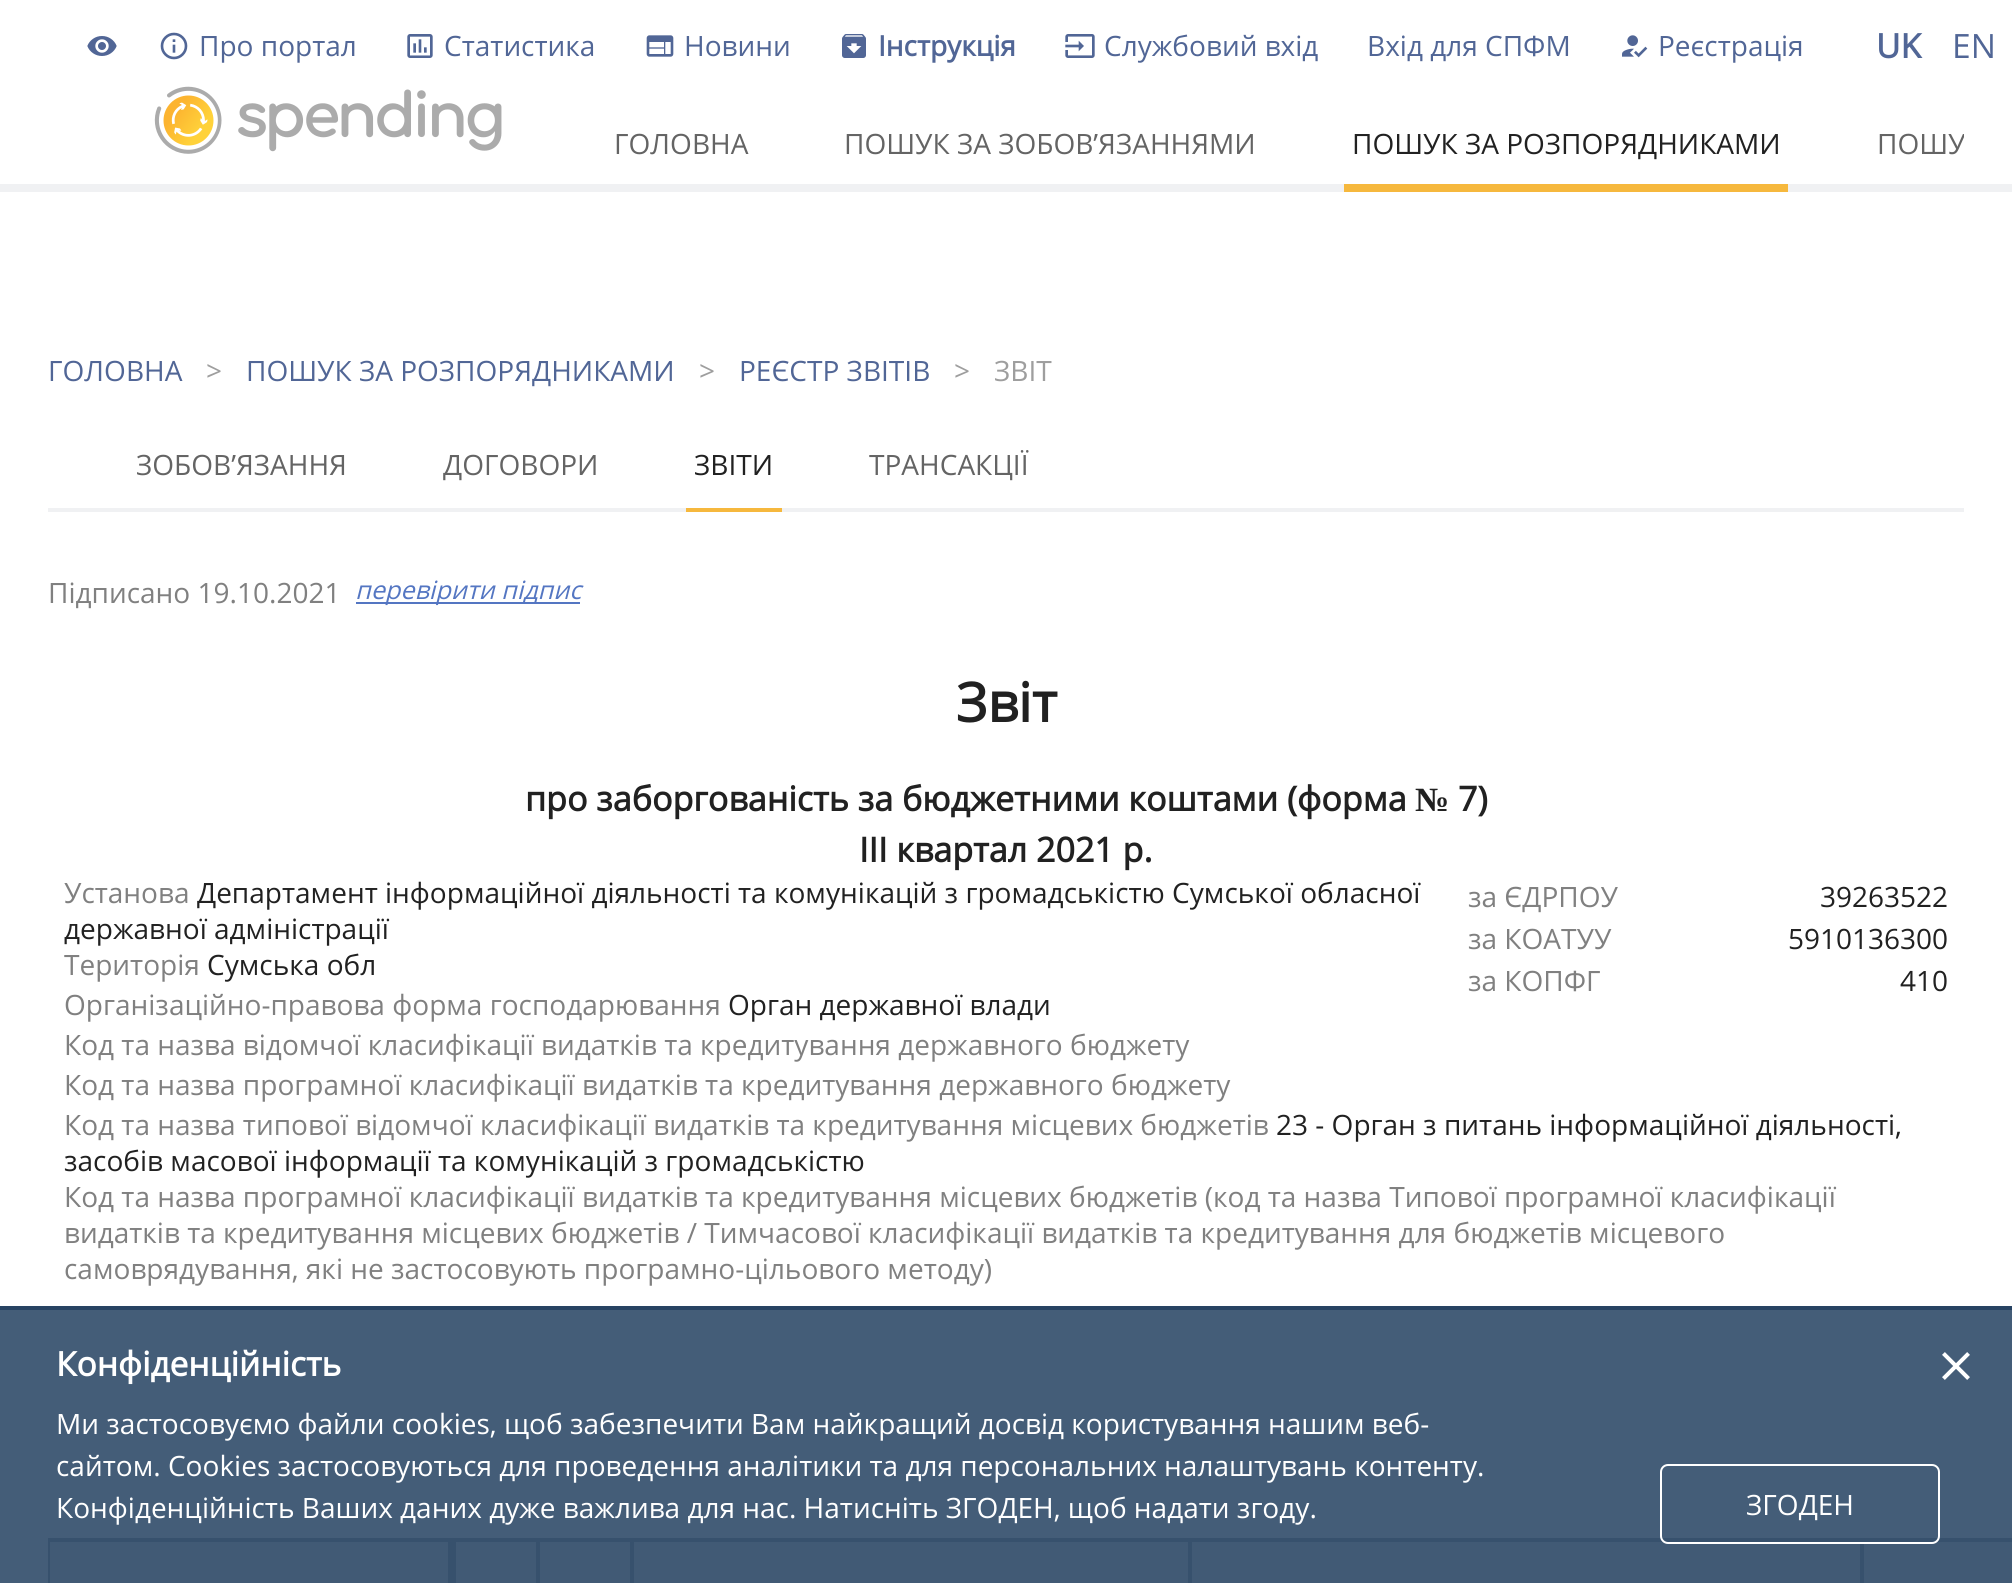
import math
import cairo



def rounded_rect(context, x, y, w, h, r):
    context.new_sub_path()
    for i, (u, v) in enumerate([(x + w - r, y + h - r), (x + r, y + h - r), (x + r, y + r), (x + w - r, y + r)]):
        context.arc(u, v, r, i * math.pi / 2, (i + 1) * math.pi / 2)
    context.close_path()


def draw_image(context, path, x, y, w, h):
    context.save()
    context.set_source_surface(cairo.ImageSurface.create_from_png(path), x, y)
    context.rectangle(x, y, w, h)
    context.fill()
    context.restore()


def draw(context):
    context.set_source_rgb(1, 1, 1)
    context.paint()
    context.set_source_rgb(240 / 255, 241 / 255, 243 / 255)
    context.rectangle(0, 184, 2012, 8)
    context.fill()
    draw_image(context, "images/1.png", 87, 36, 30, 20)
    draw_image(context, "images/2.png", 160, 32, 28, 28)
    draw_image(context, "images/3.png", 407, 34, 26, 24)
    draw_image(context, "images/4.png", 646, 35, 28, 22)
    draw_image(context, "images/5.png", 842, 34, 24, 24)
    draw_image(context, "images/6.png", 1065, 34, 30, 24)
    draw_image(context, "images/7.png", 1622, 35, 26, 23)
    draw_image(context, "images/8.png", 154, 86, 348, 68)
    context.set_source_rgb(246 / 255, 184 / 255, 61 / 255)
    context.rectangle(1344, 184, 444, 8)
    context.fill()
    context.set_source_rgb(240 / 255, 241 / 255, 243 / 255)
    context.rectangle(48, 508, 1916, 4)
    context.fill()
    context.set_source_rgb(246 / 255, 184 / 255, 61 / 255)
    context.rectangle(686, 508, 96, 4)
    context.fill()
    context.set_source_rgb(84 / 255, 118 / 255, 194 / 255)
    context.rectangle(356, 602, 224, 2)
    context.fill()
    context.set_source_rgb(170 / 255, 172 / 255, 178 / 255)
    context.rectangle(48, 1538, 400, 4)
    context.fill()
    context.rectangle(448, 1538, 1564, 45)
    context.fill()
    context.set_source_rgb(235 / 255, 235 / 255, 235 / 255)
    context.rectangle(50, 1542, 398, 41)
    context.fill()
    context.set_source_rgb(170 / 255, 172 / 255, 178 / 255)
    context.rectangle(48, 1542, 2, 41)
    context.fill()
    context.set_source_rgb(235 / 255, 235 / 255, 235 / 255)
    context.rectangle(456, 1542, 80, 41)
    context.fill()
    context.rectangle(540, 1542, 90, 41)
    context.fill()
    context.rectangle(634, 1542, 554, 41)
    context.fill()
    context.rectangle(1192, 1542, 668, 41)
    context.fill()
    context.rectangle(1864, 1542, 148, 41)
    context.fill()
    context.set_source_rgba(36 / 255, 65 / 255, 97 / 255, 0.85)
    context.rectangle(0, 1306, 2012, 277)
    context.fill()
    context.set_source_rgba(36 / 255, 65 / 255, 97 / 255, 0.9)
    context.rectangle(0, 1306, 2012, 4)
    context.fill()
    draw_image(context, "images/9.png", 1942, 1352, 28, 28)
    rounded_rect(context, 1661, 1465, 278, 78, 7)
    context.set_source_rgb(1, 1, 1)
    context.stroke()
    context.select_font_face("Open Sans")
    context.set_font_size(28)
    context.set_source_rgb(81 / 255, 102 / 255, 150 / 255)
    context.move_to(199, 56)
    context.show_text("Про портал")
    context.move_to(444, 56)
    context.show_text("Статистика")
    context.move_to(684, 56)
    context.show_text("Новини")
    context.select_font_face("Open Sans", cairo.FontSlant.NORMAL, cairo.FontWeight.BOLD)
    context.move_to(878, 56)
    context.show_text("Інструкція")
    context.select_font_face("Open Sans")
    context.move_to(1104, 56)
    context.show_text("Службовий вхід")
    context.move_to(1367, 56)
    context.show_text("Вхід для СПФМ")
    context.move_to(1658, 56)
    context.show_text("Реєстрація")
    context.select_font_face("Open Sans", cairo.FontSlant.NORMAL, cairo.FontWeight.BOLD)
    context.set_font_size(33.5)
    context.move_to(1876, 58)
    context.show_text("UK")
    context.select_font_face("Open Sans")
    context.move_to(1952, 58)
    context.show_text("EN")
    context.set_font_size(28)
    context.set_source_rgb(100 / 255, 100 / 255, 100 / 255)
    context.move_to(614, 154)
    context.show_text("ГОЛОВНА")
    context.move_to(844, 154)
    context.show_text("ПОШУК ЗА ЗОБОВ’ЯЗАННЯМИ")
    context.set_source_rgb(33 / 255, 33 / 255, 33 / 255)
    context.move_to(1352, 154)
    context.show_text("ПОШУК ЗА РОЗПОРЯДНИКАМИ")
    context.save()
    context.rectangle(526, 96, 1438, 96)
    context.clip()
    context.set_source_rgb(100 / 255, 100 / 255, 100 / 255)
    context.move_to(1877, 154)
    context.show_text("ПОШУ")
    context.restore()
    context.set_source_rgb(81 / 255, 102 / 255, 150 / 255)
    context.move_to(48, 381)
    context.show_text("ГОЛОВНА")
    context.set_source_rgb(158 / 255, 158 / 255, 158 / 255)
    context.move_to(206, 381)
    context.show_text(">")
    context.set_source_rgb(81 / 255, 102 / 255, 150 / 255)
    context.move_to(246, 381)
    context.show_text("ПОШУК ЗА РОЗПОРЯДНИКАМИ")
    context.set_source_rgb(158 / 255, 158 / 255, 158 / 255)
    context.move_to(699, 381)
    context.show_text(">")
    context.set_source_rgb(81 / 255, 102 / 255, 150 / 255)
    context.move_to(739, 381)
    context.show_text("РЕЄСТР ЗВІТІВ")
    context.set_source_rgb(158 / 255, 158 / 255, 158 / 255)
    context.move_to(954, 381)
    context.show_text(">")
    context.move_to(994, 381)
    context.show_text("ЗВІТ")
    context.set_source_rgb(100 / 255, 100 / 255, 100 / 255)
    context.move_to(136, 475)
    context.show_text("ЗОБОВ’ЯЗАННЯ")
    context.move_to(443, 475)
    context.show_text("ДОГОВОРИ")
    context.set_source_rgb(33 / 255, 33 / 255, 33 / 255)
    context.move_to(694, 475)
    context.show_text("ЗВІТИ")
    context.set_source_rgb(100 / 255, 100 / 255, 100 / 255)
    context.move_to(869, 475)
    context.show_text("ТРАНСАКЦІЇ")
    context.set_source_rgb(128 / 255, 128 / 255, 128 / 255)
    context.move_to(48, 603)
    context.show_text("Підписано 19.10.2021")
    context.select_font_face("Open Sans", cairo.FontSlant.ITALIC)
    context.set_font_size(25.25)
    context.set_source_rgb(84 / 255, 118 / 255, 194 / 255)
    context.move_to(355, 599)
    context.show_text("перевірити підпис")
    context.select_font_face("Open Sans", cairo.FontSlant.NORMAL, cairo.FontWeight.BOLD)
    context.set_font_size(54)
    context.set_source_rgb(33 / 255, 33 / 255, 33 / 255)
    context.move_to(956, 722)
    context.show_text("Звіт")
    context.set_font_size(34)
    context.move_to(525, 811)
    context.show_text("про заборгованість за бюджетними коштами (форма")
    context.select_font_face("Liberation Serif", cairo.FontSlant.NORMAL, cairo.FontWeight.BOLD)
    context.move_to(1415, 811)
    context.show_text("№")
    context.select_font_face("Open Sans", cairo.FontSlant.NORMAL, cairo.FontWeight.BOLD)
    context.move_to(1458, 811)
    context.show_text("7)")
    context.move_to(859, 862)
    context.show_text("ІII квартал 2021 р.")
    context.select_font_face("Open Sans")
    context.set_font_size(28)
    context.move_to(197, 903)
    context.show_text("Департамент інформаційної діяльності та комунікацій з громадськістю Сумської обласної")
    context.move_to(64, 939)
    context.show_text("державної адміністрації")
    context.set_source_rgb(128 / 255, 128 / 255, 128 / 255)
    context.move_to(64, 903)
    context.show_text("Установа")
    context.move_to(1468, 907)
    context.show_text("за ЄДРПОУ")
    context.set_source_rgb(33 / 255, 33 / 255, 33 / 255)
    context.move_to(1820, 907)
    context.show_text("39263522")
    context.set_source_rgb(128 / 255, 128 / 255, 128 / 255)
    context.move_to(1468, 949)
    context.show_text("за КОАТУУ")
    context.set_source_rgb(33 / 255, 33 / 255, 33 / 255)
    context.move_to(1788, 949)
    context.show_text("5910136300")
    context.set_source_rgb(128 / 255, 128 / 255, 128 / 255)
    context.move_to(1468, 991)
    context.show_text("за КОПФГ")
    context.set_source_rgb(33 / 255, 33 / 255, 33 / 255)
    context.move_to(1900, 991)
    context.show_text("410")
    context.set_source_rgb(128 / 255, 128 / 255, 128 / 255)
    context.move_to(64, 975)
    context.show_text("Територія")
    context.set_source_rgb(33 / 255, 33 / 255, 33 / 255)
    context.move_to(207, 975)
    context.show_text("Сумська обл")
    context.set_source_rgb(128 / 255, 128 / 255, 128 / 255)
    context.move_to(64, 1015)
    context.show_text("Організаційно-правова форма господарювання")
    context.set_source_rgb(33 / 255, 33 / 255, 33 / 255)
    context.move_to(728, 1015)
    context.show_text("Орган державної влади")
    context.set_source_rgb(128 / 255, 128 / 255, 128 / 255)
    context.move_to(64, 1055)
    context.show_text("Код та назва відомчої класифікації видатків та кредитування державного бюджету")
    context.move_to(64, 1095)
    context.show_text("Код та назва програмної класифікації видатків та кредитування державного бюджету")
    context.set_source_rgb(33 / 255, 33 / 255, 33 / 255)
    context.move_to(1276, 1135)
    context.show_text("23 - Орган з питань інформаційної діяльності,")
    context.move_to(64, 1171)
    context.show_text("засобів масової інформації та комунікацій з громадськістю")
    context.set_source_rgb(128 / 255, 128 / 255, 128 / 255)
    context.move_to(64, 1135)
    context.show_text("Код та назва типової відомчої класифікації видатків та кредитування місцевих бюджетів")
    context.move_to(64, 1207)
    context.show_text("Код та назва програмної класифікації видатків та кредитування місцевих бюджетів (код та назва Типової програмної класифікації")
    context.move_to(64, 1243)
    context.show_text("видатків та кредитування місцевих бюджетів / Тимчасової класифікації видатків та кредитування для бюджетів місцевого")
    context.move_to(64, 1279)
    context.show_text("самоврядування, які не застосовують програмно-цільового методу)")
    context.select_font_face("Open Sans", cairo.FontSlant.NORMAL, cairo.FontWeight.BOLD)
    context.set_font_size(33.5)
    context.set_source_rgb(1, 1, 1)
    context.move_to(56, 1376)
    context.show_text("Конфіденційність")
    context.select_font_face("Open Sans")
    context.set_font_size(28)
    context.move_to(56, 1434)
    context.show_text("Ми застосовуємо файли cookies, щоб забезпечити Вам найкращий досвід користування нашим веб-")
    context.move_to(56, 1476)
    context.show_text("сайтом. Cookies застосовуються для проведення аналітики та для персональних налаштувань контенту.")
    context.move_to(56, 1518)
    context.show_text("Конфіденційність Ваших даних дуже важлива для нас. Натисніть ЗГОДЕН, щоб надати згоду.")
    context.move_to(1746, 1515)
    context.show_text("ЗГОДЕН")


surface = cairo.ImageSurface(cairo.Format.RGB24, 2012, 1583)
context = cairo.Context(surface)
options = cairo.FontOptions()
options.set_hint_metrics(cairo.HintMetrics.OFF)
options.set_hint_style(cairo.HintStyle.NONE)
context.set_font_options(options)
context.set_miter_limit(4)
draw(context)
surface.write_to_png("out.png")
